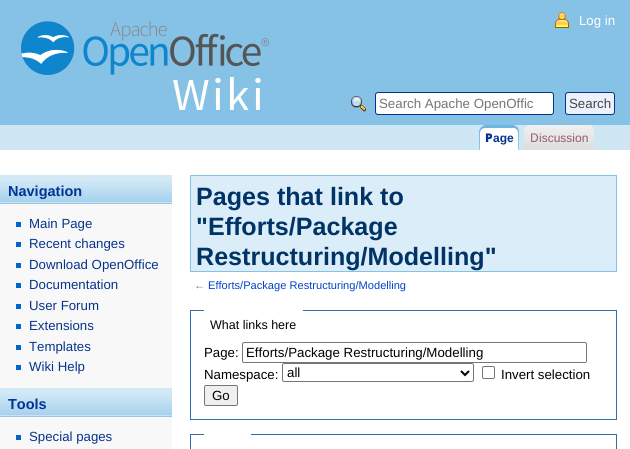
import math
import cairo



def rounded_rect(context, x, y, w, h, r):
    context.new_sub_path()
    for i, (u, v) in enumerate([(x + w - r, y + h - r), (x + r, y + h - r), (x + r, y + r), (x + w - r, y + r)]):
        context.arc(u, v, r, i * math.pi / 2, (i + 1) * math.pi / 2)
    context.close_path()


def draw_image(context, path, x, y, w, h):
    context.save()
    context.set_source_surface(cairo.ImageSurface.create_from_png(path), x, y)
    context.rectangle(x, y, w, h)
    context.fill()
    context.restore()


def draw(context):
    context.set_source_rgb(1, 1, 1)
    context.paint()
    context.set_source_rgb(134 / 255, 194 / 255, 230 / 255)
    context.rectangle(0, 0, 630, 125)
    context.fill()
    draw_image(context, "images/1.png", 0, 21, 562, 104)
    draw_image(context, "images/2.png", 555, 12, 14, 16)
    draw_image(context, "images/3.png", 351, 96, 15, 16)
    context.set_source_rgb(1, 1, 1)
    rounded_rect(context, 375.5, 92.5, 178, 22, 2.5)
    context.fill_preserve()
    context.set_source_rgb(6 / 255, 51 / 255, 139 / 255)
    context.set_line_width(1)
    context.stroke()
    context.set_source_rgb(236 / 255, 242 / 255, 253 / 255)
    rounded_rect(context, 565.5, 92.5, 49, 22, 2.5)
    context.fill_preserve()
    context.set_source_rgb(6 / 255, 51 / 255, 139 / 255)
    context.stroke()
    context.set_source_rgb(207 / 255, 231 / 255, 245 / 255)
    context.rectangle(0, 125, 630, 25)
    context.fill()
    draw_image(context, "images/4.png", 479, 125, 34, 25)
    draw_image(context, "images/5.png", 513, 125, 6, 25)
    draw_image(context, "images/6.png", 524, 125, 70, 25)
    draw_image(context, "images/7.png", 589, 125, 5, 5)
    draw_image(context, "images/8.png", 0, 175, 172, 29)
    context.set_source_rgb(248 / 255, 248 / 255, 248 / 255)
    context.rectangle(0, 204, 172, 184)
    context.fill()
    context.set_source_rgb(0, 102 / 255, 204 / 255)
    context.rectangle(16, 222, 5, 5)
    context.fill()
    context.rectangle(16, 242, 5, 5)
    context.fill()
    context.rectangle(16, 263, 5, 5)
    context.fill()
    context.rectangle(16, 283, 5, 5)
    context.fill()
    context.rectangle(16, 304, 5, 5)
    context.fill()
    context.rectangle(16, 324, 5, 5)
    context.fill()
    context.rectangle(16, 345, 5, 5)
    context.fill()
    context.rectangle(16, 365, 5, 5)
    context.fill()
    context.set_source_rgb(248 / 255, 248 / 255, 248 / 255)
    context.rectangle(0, 417, 172, 32)
    context.fill()
    draw_image(context, "images/8.png", 0, 388, 172, 29)
    context.set_source_rgb(0, 102 / 255, 204 / 255)
    context.rectangle(16, 435, 5, 5)
    context.fill()
    context.set_source_rgb(219 / 255, 237 / 255, 248 / 255)
    context.rectangle(190.5, 175.5, 426, 96)
    context.fill_preserve()
    context.set_source_rgb(134 / 255, 194 / 255, 230 / 255)
    context.stroke()
    context.rectangle(190.5, 310.5, 426, 109)
    context.set_source_rgb(47 / 255, 111 / 255, 171 / 255)
    context.stroke()
    context.set_source_rgb(1, 1, 1)
    context.rectangle(204, 310, 99, 1)
    context.fill()
    rounded_rect(context, 242.5, 342.5, 344, 20, 1.5)
    context.set_source_rgb(118 / 255, 118 / 255, 118 / 255)
    context.stroke()
    rounded_rect(context, 282.5, 363.5, 191, 18, 1.5)
    context.stroke()
    context.new_path()
    context.move_to(461, 371)
    context.line_to(465, 375)
    context.line_to(469, 371)
    context.set_source_rgb(0, 0, 0)
    context.set_line_width(2)
    context.stroke()
    rounded_rect(context, 482.5, 366.5, 12, 12, 1.5)
    context.set_source_rgb(118 / 255, 118 / 255, 118 / 255)
    context.set_line_width(1)
    context.stroke()
    context.set_source_rgb(239 / 255, 239 / 255, 239 / 255)
    rounded_rect(context, 204.5, 385.5, 33, 20, 1.5)
    context.fill_preserve()
    context.set_source_rgb(118 / 255, 118 / 255, 118 / 255)
    context.stroke()
    context.rectangle(190.5, 434.5, 426, 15)
    context.set_source_rgb(47 / 255, 111 / 255, 171 / 255)
    context.stroke()
    context.set_source_rgb(1, 1, 1)
    context.rectangle(204, 434, 47, 1)
    context.fill()
    context.select_font_face("Liberation Sans")
    context.set_font_size(13.25)
    context.move_to(579, 25)
    context.show_text("Log in")
    context.set_font_size(13.3)
    context.set_source_rgb(117 / 255, 117 / 255, 117 / 255)
    context.move_to(379, 108)
    context.show_text("Search Apache OpenOffic")
    context.set_source_rgb(68 / 255, 68 / 255, 68 / 255)
    context.move_to(569, 108)
    context.show_text("Search")
    context.select_font_face("Noto Sans Black")
    context.set_font_size(12)
    context.set_source_rgb(6 / 255, 51 / 255, 139 / 255)
    context.move_to(485, 142)
    context.show_text("P")
    context.select_font_face("Liberation Sans", cairo.FontSlant.NORMAL, cairo.FontWeight.BOLD)
    context.move_to(493, 142)
    context.show_text("age")
    context.select_font_face("Noto Sans")
    context.set_source_rgb(154 / 255, 87 / 255, 110 / 255)
    context.move_to(530, 142)
    context.show_text("D")
    context.select_font_face("Liberation Sans")
    context.move_to(539, 142)
    context.show_text("iscussion")
    context.select_font_face("Liberation Sans", cairo.FontSlant.NORMAL, cairo.FontWeight.BOLD)
    context.set_font_size(14.5)
    context.set_source_rgb(0, 51 / 255, 153 / 255)
    context.move_to(8, 196)
    context.show_text("Navigation")
    context.select_font_face("Liberation Sans")
    context.set_font_size(13.25)
    context.set_source_rgb(6 / 255, 51 / 255, 139 / 255)
    context.move_to(29, 228)
    context.show_text("Main Page")
    context.move_to(29, 248)
    context.show_text("Recent changes")
    context.move_to(29, 269)
    context.show_text("Download OpenOffice")
    context.move_to(29, 289)
    context.show_text("Documentation")
    context.move_to(29, 310)
    context.show_text("User Forum")
    context.move_to(29, 330)
    context.show_text("Extensions")
    context.move_to(29, 351)
    context.show_text("Templates")
    context.move_to(29, 371)
    context.show_text("Wiki Help")
    context.select_font_face("Liberation Sans", cairo.FontSlant.NORMAL, cairo.FontWeight.BOLD)
    context.set_font_size(14.5)
    context.set_source_rgb(0, 51 / 255, 153 / 255)
    context.move_to(8, 409)
    context.show_text("Tools")
    context.select_font_face("Liberation Sans")
    context.set_font_size(13.25)
    context.set_source_rgb(6 / 255, 51 / 255, 139 / 255)
    context.move_to(29, 441)
    context.show_text("Special pages")
    context.select_font_face("Liberation Sans", cairo.FontSlant.NORMAL, cairo.FontWeight.BOLD)
    context.set_font_size(25.1)
    context.set_source_rgb(0, 51 / 255, 102 / 255)
    context.move_to(196, 205)
    context.show_text("Pages that link to")
    context.move_to(196, 235)
    context.show_text("\"Efforts/Package")
    context.move_to(196, 265)
    context.show_text("Restructuring/Modelling\"")
    context.select_font_face("Liberation Sans")
    context.set_font_size(11.1)
    context.set_source_rgb(125 / 255, 125 / 255, 125 / 255)
    context.move_to(194, 289)
    context.show_text("←")
    context.set_source_rgb(0, 68 / 255, 204 / 255)
    context.move_to(208, 289)
    context.show_text("Efforts/Package Restructuring/Modelling")
    context.set_font_size(12.5)
    context.set_source_rgb(0, 0, 0)
    context.move_to(210, 329)
    context.show_text("What links here")
    context.set_font_size(13.25)
    context.move_to(204, 357)
    context.show_text("Page:")
    context.set_font_size(13.3)
    context.move_to(246, 357)
    context.show_text("Efforts/Package Restructuring/Modelling")
    context.set_font_size(13.25)
    context.move_to(204, 379)
    context.show_text("Namespace:")
    context.set_font_size(13.3)
    context.move_to(287, 377)
    context.show_text("all")
    context.set_font_size(13.25)
    context.move_to(501, 379)
    context.show_text("Invert selection")
    context.set_font_size(13.3)
    context.move_to(212, 400)
    context.show_text("Go")


surface = cairo.ImageSurface(cairo.Format.RGB24, 630, 449)
context = cairo.Context(surface)
options = cairo.FontOptions()
options.set_hint_metrics(cairo.HintMetrics.OFF)
options.set_hint_style(cairo.HintStyle.NONE)
context.set_font_options(options)
context.set_miter_limit(4)
draw(context)
surface.write_to_png("out.png")
